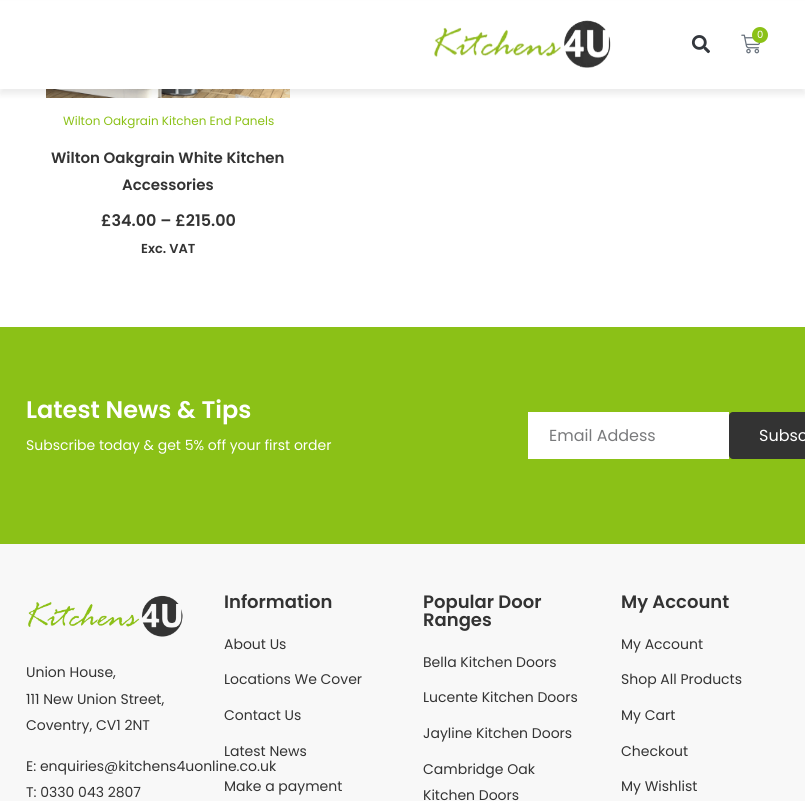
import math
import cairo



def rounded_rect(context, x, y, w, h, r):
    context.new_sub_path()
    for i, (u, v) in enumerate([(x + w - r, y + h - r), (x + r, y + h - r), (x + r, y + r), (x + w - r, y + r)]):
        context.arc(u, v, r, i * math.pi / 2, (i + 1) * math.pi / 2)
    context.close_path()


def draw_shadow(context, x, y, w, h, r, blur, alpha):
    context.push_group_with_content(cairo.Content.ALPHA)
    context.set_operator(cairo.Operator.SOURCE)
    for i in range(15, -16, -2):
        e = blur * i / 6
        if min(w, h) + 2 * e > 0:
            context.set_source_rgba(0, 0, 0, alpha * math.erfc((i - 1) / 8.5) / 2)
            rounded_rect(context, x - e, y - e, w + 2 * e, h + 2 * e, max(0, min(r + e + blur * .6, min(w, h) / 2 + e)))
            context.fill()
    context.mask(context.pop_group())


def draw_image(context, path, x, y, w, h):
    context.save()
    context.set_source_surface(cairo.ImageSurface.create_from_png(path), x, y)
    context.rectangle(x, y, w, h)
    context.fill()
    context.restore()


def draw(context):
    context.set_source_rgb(1, 1, 1)
    context.paint()
    draw_image(context, "images/4.png", 46, 89, 244, 9)
    context.set_source_rgb(0, 0, 0)
    draw_shadow(context, 0, 5, 805, 89, 0, 3.5, 0.08)
    context.set_source_rgb(1, 1, 1)
    context.rectangle(0, 1, 805, 88)
    context.fill()
    draw_image(context, "images/1.png", 434, 20, 177, 48)
    draw_image(context, "images/2.png", 741, 34, 20, 20)
    context.set_source_rgb(139 / 255, 193 / 255, 23 / 255)
    context.arc(760, 35, 8, 0, 2 * math.pi)
    context.fill()
    draw_image(context, "images/3.png", 691, 35, 19, 19)
    context.rectangle(0, 327, 805, 217)
    context.fill()
    context.set_source_rgb(1, 1, 1)
    context.rectangle(528, 412, 201, 47)
    context.fill()
    context.set_source_rgb(51 / 255, 51 / 255, 51 / 255)
    rounded_rect(context, 729, 412, 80, 47, 4)
    context.fill()
    context.set_source_rgb(248 / 255, 248 / 255, 248 / 255)
    context.rectangle(0, 544, 805, 257)
    context.fill()
    draw_image(context, "images/5.png", 28, 595, 155, 42)
    context.select_font_face("Poppins")
    context.set_font_size(10)
    context.set_source_rgb(1, 1, 1)
    context.move_to(757, 38)
    context.show_text("0")
    context.set_font_size(12)
    context.set_source_rgb(139 / 255, 193 / 255, 23 / 255)
    context.move_to(63, 125)
    context.show_text("Wilton Oakgrain Kitchen End Panels")
    context.select_font_face("Poppins SemiBold")
    context.set_font_size(15)
    context.set_source_rgb(51 / 255, 51 / 255, 51 / 255)
    context.move_to(51, 163)
    context.show_text("Wilton Oakgrain White Kitchen")
    context.move_to(122, 190)
    context.show_text("Accessories")
    context.set_font_size(16)
    context.move_to(101, 226)
    context.show_text("£34.00 – £215.00")
    context.set_font_size(13)
    context.move_to(141, 253)
    context.show_text("Exc. VAT")
    context.set_font_size(24)
    context.set_source_rgb(1, 1, 1)
    context.move_to(26, 418)
    context.show_text("Latest News & Tips")
    context.select_font_face("Poppins")
    context.set_font_size(14)
    context.move_to(26, 450)
    context.show_text("Subscribe today & get 5% off your first order")
    context.set_font_size(16)
    context.set_source_rgb(121 / 255, 122 / 255, 124 / 255)
    context.move_to(549, 441)
    context.show_text("Email Addess")
    context.set_source_rgb(1, 1, 1)
    context.move_to(759, 441)
    context.show_text("Subsc")
    context.set_font_size(14)
    context.set_source_rgb(51 / 255, 51 / 255, 51 / 255)
    context.move_to(26, 677)
    context.show_text("Union House,")
    context.move_to(26, 704)
    context.show_text("111 New Union Street,")
    context.move_to(26, 730)
    context.show_text("Coventry, CV1 2NT")
    context.move_to(26, 771)
    context.show_text("E: enquiries@kitchens4uonline.co.uk")
    context.move_to(26, 797)
    context.show_text("T: 0330 043 2807")
    context.select_font_face("Poppins SemiBold")
    context.set_font_size(18)
    context.move_to(224, 608)
    context.show_text("Information")
    context.select_font_face("Poppins")
    context.set_font_size(14)
    context.move_to(224, 649)
    context.show_text("About Us")
    context.move_to(224, 684)
    context.show_text("Locations We Cover")
    context.move_to(224, 720)
    context.show_text("Contact Us")
    context.move_to(224, 756)
    context.show_text("Latest News")
    context.move_to(224, 791)
    context.show_text("Make a payment")
    context.select_font_face("Poppins SemiBold")
    context.set_font_size(18)
    context.move_to(423, 608)
    context.show_text("Popular Door")
    context.move_to(423, 626)
    context.show_text("Ranges")
    context.select_font_face("Poppins")
    context.set_font_size(14)
    context.move_to(423, 667)
    context.show_text("Bella Kitchen Doors")
    context.move_to(423, 702)
    context.show_text("Lucente Kitchen Doors")
    context.move_to(423, 738)
    context.show_text("Jayline Kitchen Doors")
    context.move_to(423, 774)
    context.show_text("Cambridge Oak")
    context.move_to(423, 800)
    context.show_text("Kitchen Doors")
    context.select_font_face("Poppins SemiBold")
    context.set_font_size(18)
    context.move_to(621, 608)
    context.show_text("My Account")
    context.select_font_face("Poppins")
    context.set_font_size(14)
    context.move_to(621, 649)
    context.show_text("My Account")
    context.move_to(621, 684)
    context.show_text("Shop All Products")
    context.move_to(621, 720)
    context.show_text("My Cart")
    context.move_to(621, 756)
    context.show_text("Checkout")
    context.move_to(621, 791)
    context.show_text("My Wishlist")


surface = cairo.ImageSurface(cairo.Format.RGB24, 805, 801)
context = cairo.Context(surface)
options = cairo.FontOptions()
options.set_hint_metrics(cairo.HintMetrics.OFF)
options.set_hint_style(cairo.HintStyle.NONE)
context.set_font_options(options)
context.set_miter_limit(4)
draw(context)
surface.write_to_png("out.png")
